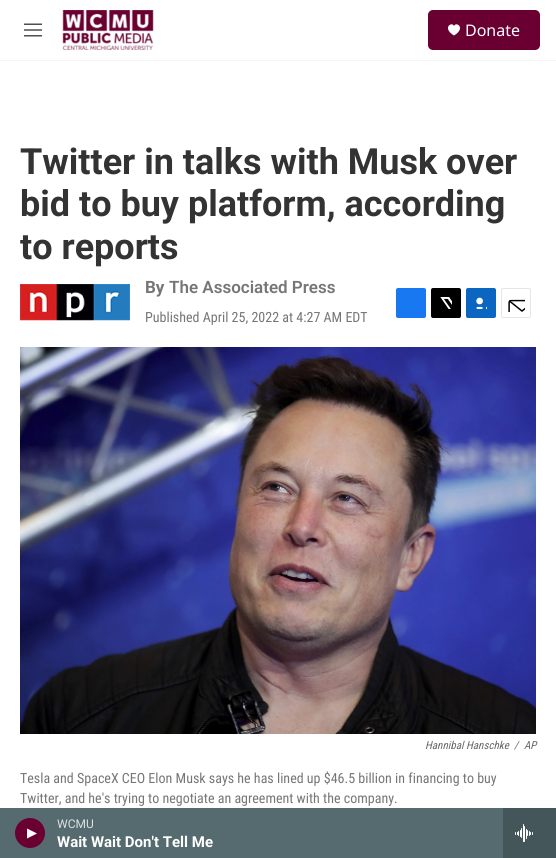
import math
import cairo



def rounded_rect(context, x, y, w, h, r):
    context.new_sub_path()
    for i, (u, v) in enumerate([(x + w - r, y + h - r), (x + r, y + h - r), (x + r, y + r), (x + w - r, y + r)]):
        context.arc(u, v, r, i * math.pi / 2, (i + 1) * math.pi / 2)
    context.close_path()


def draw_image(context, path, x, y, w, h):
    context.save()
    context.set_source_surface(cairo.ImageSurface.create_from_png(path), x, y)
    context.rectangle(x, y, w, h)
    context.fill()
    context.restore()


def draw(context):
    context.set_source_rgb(1, 1, 1)
    context.paint()
    context.set_source_rgb(245 / 255, 245 / 255, 245 / 255)
    context.rectangle(0, 60, 556, 1)
    context.fill()
    draw_image(context, "images/1.png", 24, 23, 18, 14)
    draw_image(context, "images/2.png", 62, 10, 92, 40)
    context.set_source_rgb(106 / 255, 0, 50 / 255)
    rounded_rect(context, 428, 10, 112, 40, 5)
    context.fill()
    context.set_source_rgb(1, 1, 1)
    context.new_path()
    context.move_to(454, 26)
    context.curve_to(452, 21, 441.5, 28, 454, 35.5)
    context.curve_to(466.5, 28, 456, 21, 454, 26)
    context.close_path()
    context.fill()
    context.set_source_rgb(85 / 255, 107 / 255, 111 / 255)
    context.rectangle(0, 808, 503, 50)
    context.fill()
    context.set_source_rgb(106 / 255, 0, 50 / 255)
    context.arc(30, 833, 15, 0, 2 * math.pi)
    context.fill()
    context.set_source_rgb(1, 1, 1)
    context.new_path()
    context.move_to(27, 828.5)
    context.line_to(37, 833.5)
    context.line_to(27, 838.5)
    context.close_path()
    context.fill()
    context.set_source_rgb(68 / 255, 86 / 255, 89 / 255)
    context.rectangle(503, 808, 53, 50)
    context.fill()
    draw_image(context, "images/3.png", 515, 824, 18, 18)
    draw_image(context, "images/4.png", 20, 284, 110, 37)
    context.set_source_rgb(23 / 255, 120 / 255, 242 / 255)
    rounded_rect(context, 396, 288, 30, 30, 2)
    context.fill()
    context.set_source_rgb(0, 0, 0)
    rounded_rect(context, 431, 288, 30, 30, 2)
    context.fill()
    draw_image(context, "images/5.png", 440, 297, 12, 12)
    context.set_source_rgb(10 / 255, 102 / 255, 193 / 255)
    rounded_rect(context, 466, 288, 30, 30, 2)
    context.fill()
    draw_image(context, "images/6.png", 476, 297, 11, 12)
    rounded_rect(context, 501.5, 288.5, 29, 29, 1.5)
    context.set_source_rgb(230 / 255, 230 / 255, 230 / 255)
    context.set_line_width(1)
    context.stroke()
    draw_image(context, "images/7.png", 508, 299, 17, 13)
    draw_image(context, "images/8.png", 20, 347, 516, 387)
    context.select_font_face("Noto Sans")
    context.set_font_size(16)
    context.set_source_rgb(1, 1, 1)
    context.move_to(465, 36)
    context.show_text("Donate")
    context.select_font_face("Roboto")
    context.set_font_size(12)
    context.set_source_rgb(221 / 255, 225 / 255, 226 / 255)
    context.move_to(57, 828)
    context.show_text("WCMU")
    context.select_font_face("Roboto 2", cairo.FontSlant.NORMAL, cairo.FontWeight.BOLD)
    context.set_font_size(15)
    context.set_source_rgb(1, 1, 1)
    context.move_to(57, 847)
    context.show_text("Wait Wait Don't Tell Me")
    context.select_font_face("Roboto", cairo.FontSlant.NORMAL, cairo.FontWeight.BOLD)
    context.set_font_size(36)
    context.set_source_rgb(51 / 255, 51 / 255, 51 / 255)
    context.move_to(20, 174)
    context.show_text("Twitter in talks with Musk over")
    context.move_to(20, 216)
    context.show_text("bid to buy platform, according")
    context.move_to(20, 259)
    context.show_text("to reports")
    context.set_font_size(17)
    context.set_source_rgb(118 / 255, 118 / 255, 118 / 255)
    context.move_to(145, 293)
    context.show_text("By")
    context.select_font_face("Roboto SemiBold")
    context.move_to(169, 293)
    context.show_text("The Associated Press")
    context.select_font_face("Roboto Condensed")
    context.set_font_size(14)
    context.move_to(145, 322)
    context.show_text("Published April 25, 2022 at 4:27 AM EDT")
    context.select_font_face("Roboto Condensed", cairo.FontSlant.ITALIC)
    context.set_font_size(11)
    context.set_source_rgb(102 / 255, 102 / 255, 102 / 255)
    context.move_to(425, 749)
    context.show_text("Hannibal Hanschke")
    context.move_to(514, 749)
    context.show_text("/")
    context.move_to(524, 749)
    context.show_text("AP")
    context.select_font_face("Roboto Condensed")
    context.set_font_size(14)
    context.set_source_rgb(118 / 255, 118 / 255, 118 / 255)
    context.move_to(20, 783)
    context.show_text("Tesla and SpaceX CEO Elon Musk says he has lined up $46.5 billion in financing to buy")
    context.move_to(20, 803)
    context.show_text("Twitter, and he's trying to negotiate an agreement with the company.")


surface = cairo.ImageSurface(cairo.Format.RGB24, 556, 858)
context = cairo.Context(surface)
options = cairo.FontOptions()
options.set_hint_metrics(cairo.HintMetrics.OFF)
options.set_hint_style(cairo.HintStyle.NONE)
context.set_font_options(options)
context.set_miter_limit(4)
draw(context)
surface.write_to_png("out.png")
